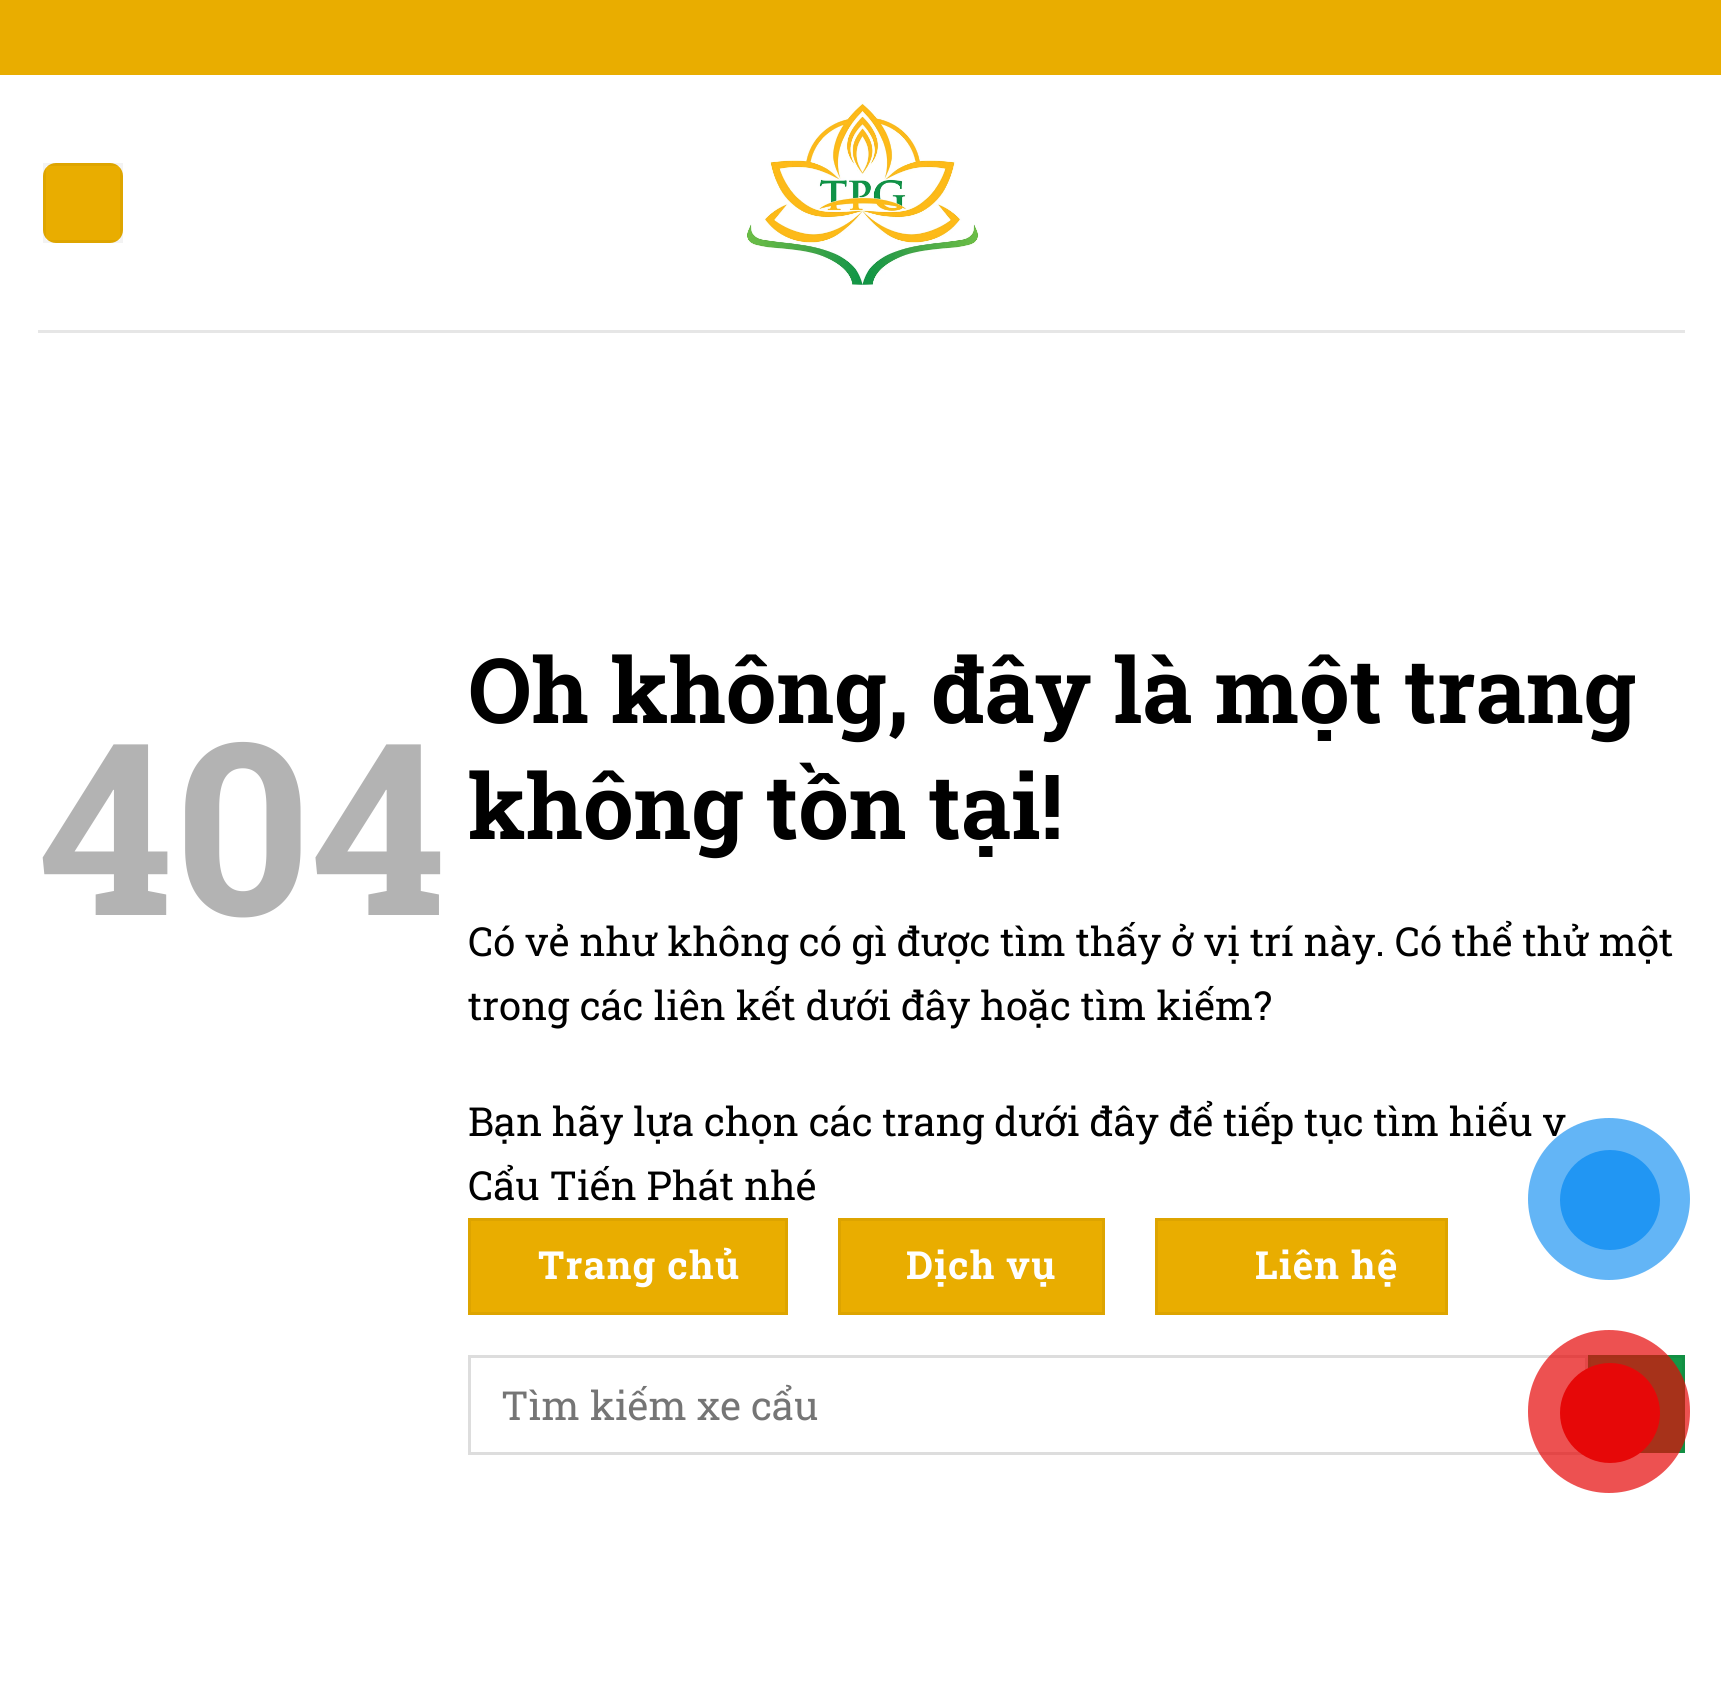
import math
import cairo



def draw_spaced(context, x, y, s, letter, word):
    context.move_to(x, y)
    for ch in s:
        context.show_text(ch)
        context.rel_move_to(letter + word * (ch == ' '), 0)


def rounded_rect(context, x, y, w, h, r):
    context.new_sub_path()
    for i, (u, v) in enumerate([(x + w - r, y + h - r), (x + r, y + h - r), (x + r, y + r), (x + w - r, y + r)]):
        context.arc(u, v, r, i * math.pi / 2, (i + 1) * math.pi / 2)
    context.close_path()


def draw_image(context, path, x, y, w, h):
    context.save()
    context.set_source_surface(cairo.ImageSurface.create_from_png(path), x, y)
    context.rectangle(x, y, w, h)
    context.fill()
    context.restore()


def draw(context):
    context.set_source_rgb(1, 1, 1)
    context.paint()
    context.set_source_rgb(233 / 255, 173 / 255, 0)
    context.rectangle(0, 0, 1721, 75)
    context.fill()
    rounded_rect(context, 43, 163, 80, 80, 13)
    context.fill()
    context.rectangle(44.5, 164.5, 77, 77)
    context.set_source_rgba(0, 0, 0, 0.05)
    context.set_line_width(3)
    context.stroke()
    draw_image(context, "images/1.png", 747, 103, 232, 182)
    context.set_source_rgb(230 / 255, 230 / 255, 230 / 255)
    context.rectangle(38, 330, 1647, 3)
    context.fill()
    context.set_source_rgb(233 / 255, 173 / 255, 0)
    context.rectangle(469.5, 1219.5, 317, 94)
    context.fill_preserve()
    context.set_source_rgb(221 / 255, 164 / 255, 0)
    context.stroke()
    context.set_source_rgb(233 / 255, 173 / 255, 0)
    context.rectangle(839.5, 1219.5, 264, 94)
    context.fill_preserve()
    context.set_source_rgb(221 / 255, 164 / 255, 0)
    context.stroke()
    context.set_source_rgb(233 / 255, 173 / 255, 0)
    context.rectangle(1156.5, 1219.5, 290, 94)
    context.fill_preserve()
    context.set_source_rgb(221 / 255, 164 / 255, 0)
    context.stroke()
    context.rectangle(469.5, 1356.5, 1117, 97)
    context.set_source_rgb(221 / 255, 221 / 255, 221 / 255)
    context.stroke()
    context.set_source_rgb(19 / 255, 151 / 255, 70 / 255)
    context.rectangle(1589.5, 1356.5, 94, 95)
    context.fill_preserve()
    context.set_source_rgb(18 / 255, 143 / 255, 67 / 255)
    context.stroke()
    context.set_source_rgba(230 / 255, 8 / 255, 8 / 255, 0.7)
    rounded_rect(context, 1528, 1330, 162, 163, 81)
    context.fill()
    context.set_source_rgb(230 / 255, 8 / 255, 8 / 255)
    context.arc(1610, 1413, 50, 0, 2 * math.pi)
    context.fill()
    context.select_font_face("Roboto Slab", cairo.FontSlant.NORMAL, cairo.FontWeight.BOLD)
    context.set_font_size(240)
    context.set_source_rgb(179 / 255, 179 / 255, 179 / 255)
    context.move_to(38, 915)
    context.show_text("404")
    context.set_font_size(90)
    context.set_source_rgb(0, 0, 0)
    context.move_to(468, 723)
    context.show_text("Oh không, đây là một trang")
    context.move_to(468, 839)
    context.show_text("không tồn tại!")
    context.select_font_face("Roboto Slab")
    context.set_font_size(40)
    context.move_to(468, 956)
    context.show_text("Có vẻ như không có gì được tìm thấy ở vị trí này. Có thể thử một")
    context.move_to(468, 1020)
    context.show_text("trong các liên kết dưới đây hoặc tìm kiếm?")
    context.move_to(468, 1136)
    context.show_text("Bạn hãy lựa chọn các trang dưới đây để tiếp tục tìm hiếu v")
    context.move_to(468, 1200)
    context.show_text("Cẩu Tiến Phát nhé")
    context.select_font_face("Roboto Slab", cairo.FontSlant.NORMAL, cairo.FontWeight.BOLD)
    context.set_font_size(38.75)
    context.set_source_rgb(1, 1, 1)
    draw_spaced(context, 538, 1279, "Trang chủ", 1.25, 0)
    draw_spaced(context, 906, 1279, "Dịch vụ", 1.25, 0)
    draw_spaced(context, 1255, 1279, "Liên hệ", 1.25, 0)
    context.select_font_face("Roboto Slab")
    context.set_font_size(40)
    context.set_source_rgb(117 / 255, 117 / 255, 117 / 255)
    context.move_to(501, 1420)
    context.show_text("Tìm kiếm xe cẩu")
    context.set_source_rgba(33 / 255, 150 / 255, 243 / 255, 0.7)
    context.new_path()
    context.arc(1609, 1199, 81, 0, 2 * math.pi)
    context.fill()
    context.set_source_rgb(33 / 255, 150 / 255, 243 / 255)
    context.arc(1610, 1200, 50, 0, 2 * math.pi)
    context.fill()


surface = cairo.ImageSurface(cairo.Format.RGB24, 1721, 1695)
context = cairo.Context(surface)
options = cairo.FontOptions()
options.set_hint_metrics(cairo.HintMetrics.OFF)
options.set_hint_style(cairo.HintStyle.NONE)
context.set_font_options(options)
context.set_miter_limit(4)
draw(context)
surface.write_to_png("out.png")
